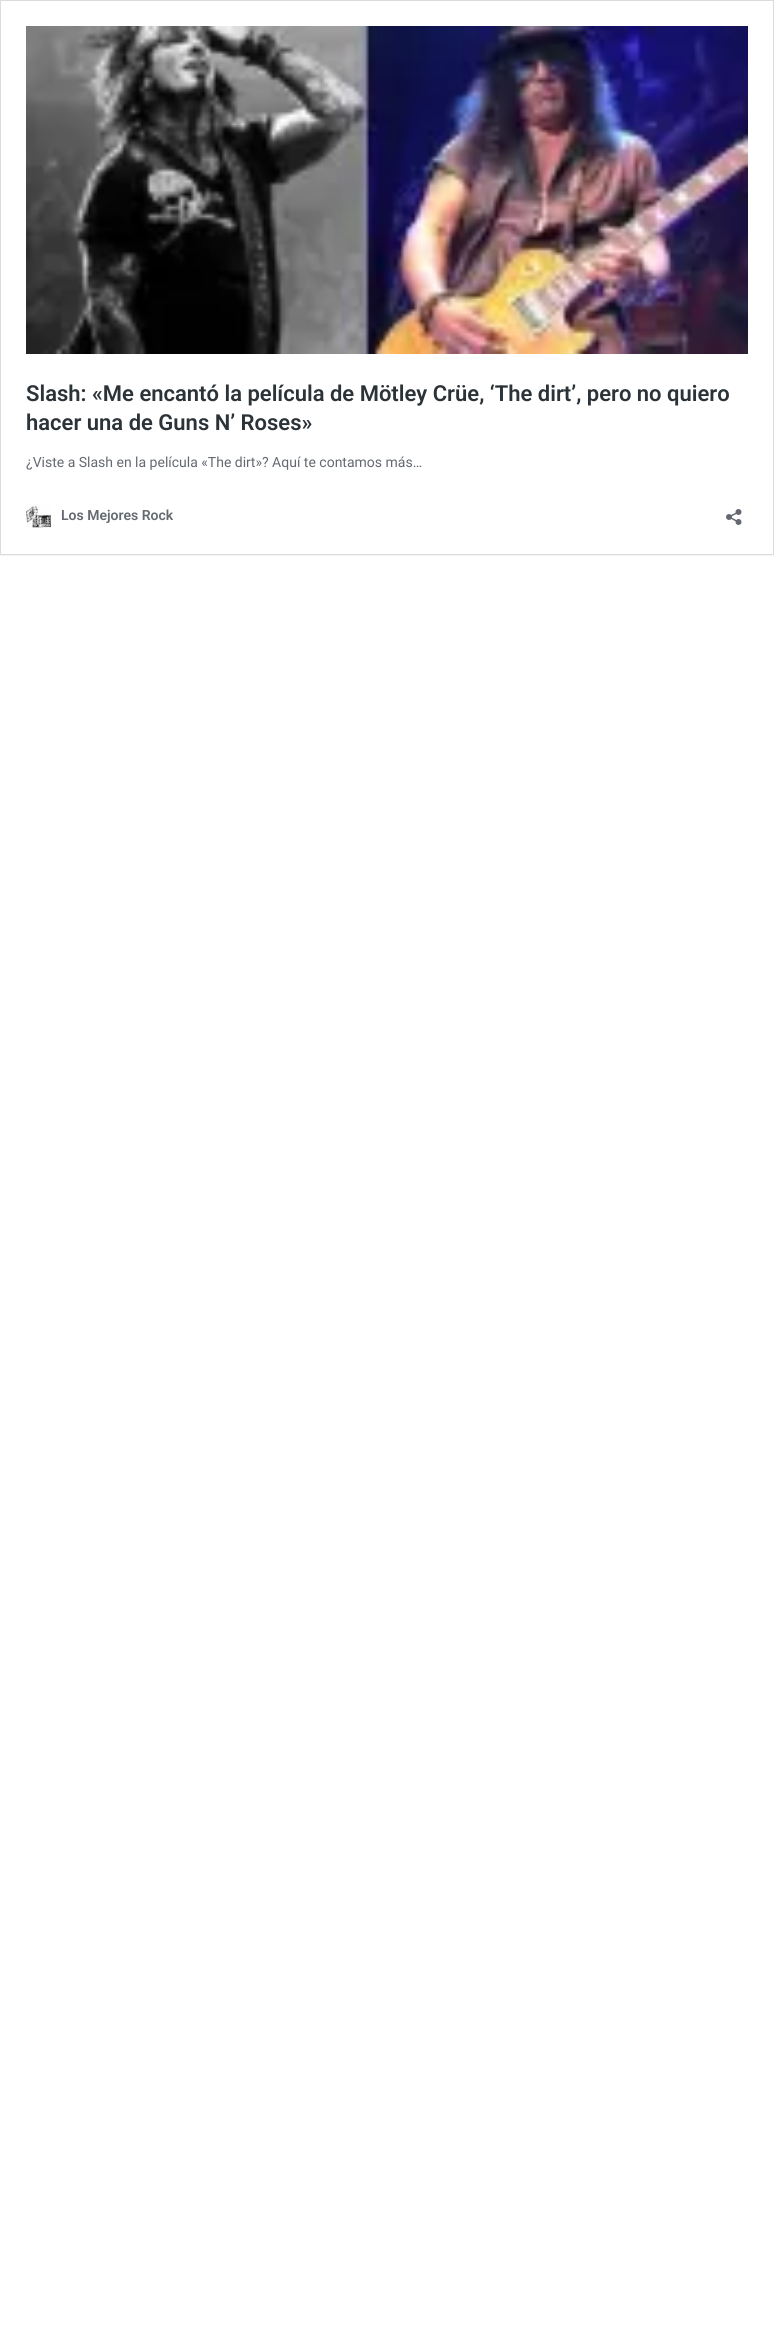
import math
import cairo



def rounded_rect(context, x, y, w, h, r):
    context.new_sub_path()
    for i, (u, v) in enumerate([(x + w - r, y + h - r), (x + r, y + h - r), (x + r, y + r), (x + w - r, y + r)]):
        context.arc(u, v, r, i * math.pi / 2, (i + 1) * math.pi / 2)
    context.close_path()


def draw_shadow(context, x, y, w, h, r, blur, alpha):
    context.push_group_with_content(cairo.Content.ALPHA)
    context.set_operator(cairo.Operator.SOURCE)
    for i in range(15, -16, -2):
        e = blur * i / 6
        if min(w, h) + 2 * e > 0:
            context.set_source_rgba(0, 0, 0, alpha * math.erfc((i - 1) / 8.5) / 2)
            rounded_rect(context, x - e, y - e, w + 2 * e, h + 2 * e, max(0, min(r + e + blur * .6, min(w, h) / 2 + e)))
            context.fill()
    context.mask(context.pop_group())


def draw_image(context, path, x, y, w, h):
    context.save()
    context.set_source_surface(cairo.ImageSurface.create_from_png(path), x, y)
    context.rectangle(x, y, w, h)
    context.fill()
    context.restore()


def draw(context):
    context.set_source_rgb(1, 1, 1)
    context.paint()
    context.save()
    context.rectangle(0, 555, 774, 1)
    context.clip()
    context.set_source_rgb(0, 0, 0)
    draw_shadow(context, 0, 1, 774, 555, 0, 0.5, 0.05)
    context.restore()
    context.rectangle(0.5, 0.5, 773, 554)
    context.set_source_rgb(220 / 255, 220 / 255, 222 / 255)
    context.set_line_width(1)
    context.stroke()
    draw_image(context, "images/1.png", 26, 26, 722, 328)
    draw_image(context, "images/2.png", 26, 504, 25, 25)
    draw_image(context, "images/3.png", 726, 509, 16, 16)
    context.select_font_face("Roboto SemiBold")
    context.set_font_size(22)
    context.set_source_rgb(44 / 255, 51 / 255, 56 / 255)
    context.move_to(26, 401)
    context.show_text("Slash: «Me encantó la película de Mötley Crüe, ‘The dirt’, pero no quiero")
    context.move_to(26, 430)
    context.show_text("hacer una de Guns N’ Roses»")
    context.select_font_face("Roboto")
    context.set_font_size(14)
    context.set_source_rgb(100 / 255, 105 / 255, 112 / 255)
    context.move_to(26, 467)
    context.show_text("¿Viste a Slash en la película «The dirt»? Aquí te contamos más…")
    context.select_font_face("Roboto SemiBold")
    context.move_to(61, 520)
    context.show_text("Los Mejores Rock")


surface = cairo.ImageSurface(cairo.Format.RGB24, 774, 2347)
context = cairo.Context(surface)
options = cairo.FontOptions()
options.set_hint_metrics(cairo.HintMetrics.OFF)
options.set_hint_style(cairo.HintStyle.NONE)
context.set_font_options(options)
context.set_miter_limit(4)
draw(context)
surface.write_to_png("out.png")
